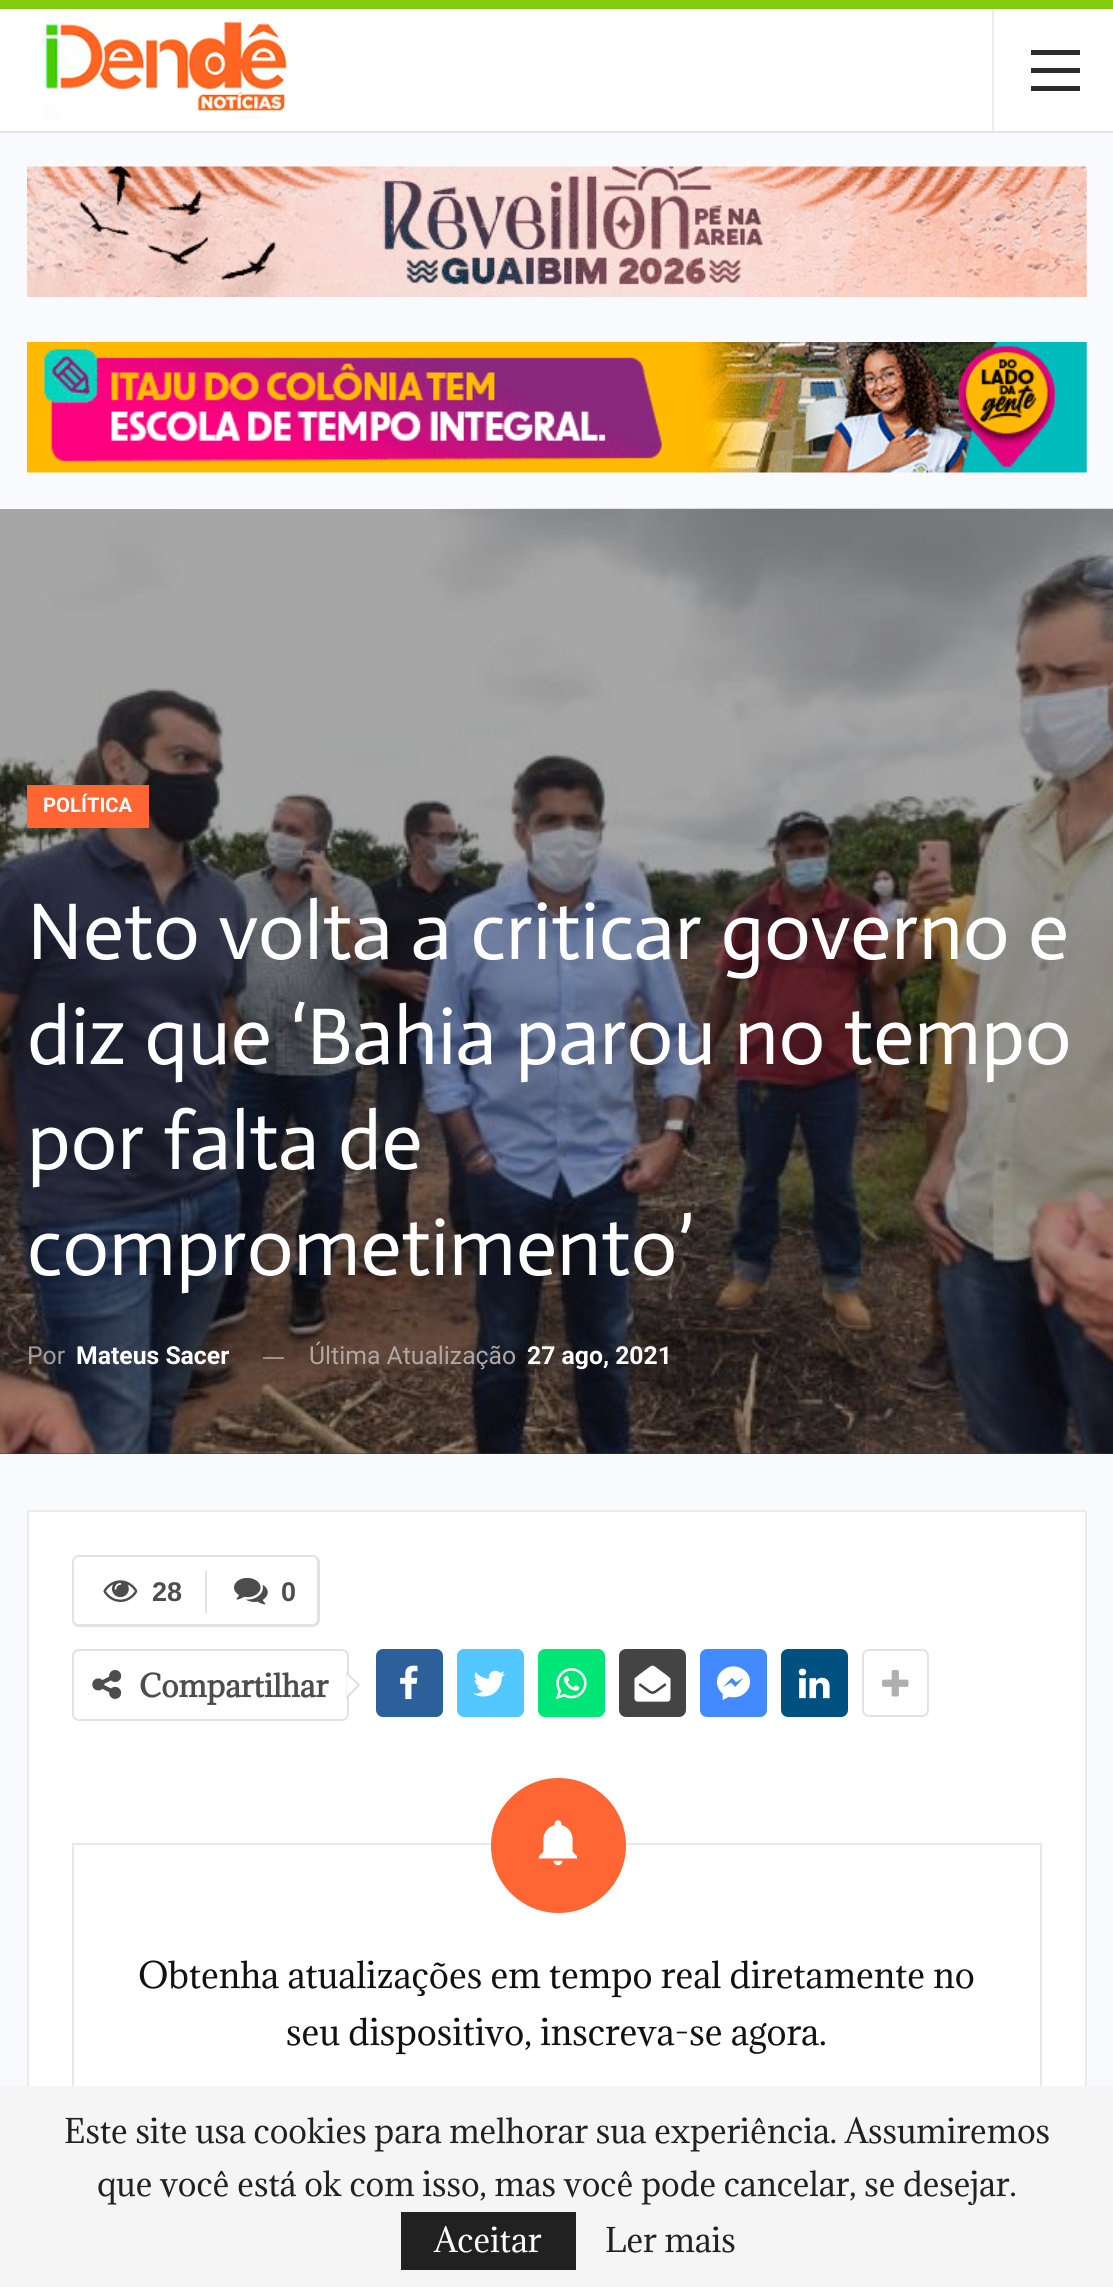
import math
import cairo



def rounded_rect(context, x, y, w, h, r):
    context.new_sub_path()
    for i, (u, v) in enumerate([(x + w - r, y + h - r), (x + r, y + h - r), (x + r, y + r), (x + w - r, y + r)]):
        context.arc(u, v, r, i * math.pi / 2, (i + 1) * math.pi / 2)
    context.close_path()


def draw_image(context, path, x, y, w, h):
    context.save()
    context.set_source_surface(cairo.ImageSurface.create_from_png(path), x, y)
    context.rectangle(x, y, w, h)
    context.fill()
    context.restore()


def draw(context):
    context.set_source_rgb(129 / 255, 204 / 255, 17 / 255)
    context.paint()
    context.set_source_rgb(249 / 255, 250 / 255, 253 / 255)
    context.rectangle(0, 133, 1113, 1953)
    context.fill()
    context.set_source_rgb(1, 1, 1)
    context.rectangle(0, 9, 1113, 122)
    context.fill()
    context.set_source_rgb(229 / 255, 229 / 255, 229 / 255)
    context.rectangle(0, 131, 1113, 2)
    context.fill()
    draw_image(context, "images/1.png", 42, 21, 245, 98)
    context.set_source_rgb(237 / 255, 237 / 255, 237 / 255)
    context.rectangle(992, 9, 2, 122)
    context.fill()
    context.set_source_rgb(44 / 255, 44 / 255, 44 / 255)
    context.rectangle(1031, 68, 49, 5)
    context.fill()
    context.rectangle(1031, 50, 49, 5)
    context.fill()
    context.rectangle(1031, 86, 49, 5)
    context.fill()
    draw_image(context, "images/2.png", 27, 166, 1060, 131)
    draw_image(context, "images/3.png", 27, 342, 1060, 131)
    context.set_source_rgb(56 / 255, 56 / 255, 56 / 255)
    context.rectangle(0, 1453, 1113, 1)
    context.fill()
    draw_image(context, "images/4.png", 0, 508, 1113, 946)
    context.set_source_rgb(1, 102 / 255, 52 / 255)
    context.rectangle(27, 785, 122, 43)
    context.fill()
    context.set_source_rgba(1, 1, 1, 0.43)
    context.rectangle(263, 1357, 21, 2)
    context.fill()
    context.set_source_rgb(1, 1, 1)
    context.rectangle(29, 1512, 1056, 574)
    context.fill()
    context.rectangle(28, 1511, 1058, 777)
    context.set_source_rgb(235 / 255, 235 / 255, 235 / 255)
    context.stroke()
    context.set_source_rgb(226 / 255, 226 / 255, 226 / 255)
    context.set_fill_rule(cairo.FillRule.EVEN_ODD)
    context.new_path()
    context.move_to(79, 1555)
    context.line_to(205, 1555)
    context.line_to(205, 1627)
    context.line_to(79, 1627)
    context.curve_to(75, 1627, 72, 1624, 72, 1620)
    context.line_to(72, 1562)
    context.curve_to(72, 1558, 75, 1555, 79, 1555)
    context.close_path()
    context.move_to(79, 1557)
    context.line_to(205, 1557)
    context.line_to(205, 1624)
    context.line_to(79, 1624)
    context.curve_to(76, 1624, 74, 1622, 74, 1620)
    context.line_to(74, 1562)
    context.curve_to(74, 1559, 76, 1557, 79, 1557)
    context.close_path()
    context.fill()
    draw_image(context, "images/5.png", 103, 1580, 35, 22)
    context.new_path()
    context.move_to(205, 1555)
    context.line_to(313, 1555)
    context.curve_to(316, 1555, 320, 1558, 320, 1562)
    context.line_to(320, 1620)
    context.curve_to(320, 1624, 316, 1627, 313, 1627)
    context.line_to(205, 1627)
    context.close_path()
    context.move_to(205, 1557)
    context.line_to(313, 1557)
    context.curve_to(315, 1557, 317, 1559, 317, 1562)
    context.line_to(317, 1620)
    context.curve_to(317, 1622, 315, 1624, 313, 1624)
    context.line_to(205, 1624)
    context.close_path()
    context.fill()
    context.rectangle(205, 1571, 2, 42)
    context.fill()
    draw_image(context, "images/6.png", 234, 1577, 34, 28)
    rounded_rect(context, 73, 1650, 275, 70, 6)
    context.stroke()
    draw_image(context, "images/7.png", 92, 1670, 30, 29)
    context.set_source_rgb(215 / 255, 215 / 255, 215 / 255)
    context.set_fill_rule(cairo.FillRule.WINDING)
    context.new_path()
    context.move_to(346.5, 1699)
    context.line_to(346.5, 1672)
    context.line_to(360, 1685)
    context.close_path()
    context.fill()
    context.set_source_rgb(1, 1, 1)
    context.new_path()
    context.move_to(346.5, 1696.5)
    context.line_to(346.5, 1674)
    context.line_to(358, 1685)
    context.close_path()
    context.fill()
    context.set_source_rgb(45 / 255, 95 / 255, 154 / 255)
    rounded_rect(context, 376, 1649, 67, 68, 7)
    context.fill()
    draw_image(context, "images/8.png", 400, 1665, 18, 35)
    context.set_source_rgb(83 / 255, 199 / 255, 1)
    rounded_rect(context, 457, 1649, 67, 68, 7)
    context.fill()
    draw_image(context, "images/9.png", 473, 1670, 32, 27)
    context.set_source_rgb(0, 230 / 255, 118 / 255)
    rounded_rect(context, 538, 1649, 67, 68, 7)
    context.fill()
    draw_image(context, "images/10.png", 555, 1668, 32, 32)
    context.set_source_rgb(68 / 255, 68 / 255, 68 / 255)
    rounded_rect(context, 619, 1649, 67, 68, 7)
    context.fill()
    draw_image(context, "images/11.png", 634, 1665, 37, 37)
    context.set_source_rgb(68 / 255, 138 / 255, 1)
    rounded_rect(context, 700, 1649, 67, 68, 7)
    context.fill()
    draw_image(context, "images/12.png", 716, 1666, 35, 34)
    context.set_source_rgb(0, 81 / 255, 130 / 255)
    rounded_rect(context, 781, 1649, 67, 68, 7)
    context.fill()
    draw_image(context, "images/13.png", 798, 1668, 32, 31)
    rounded_rect(context, 863, 1650, 65, 66, 6)
    context.set_source_rgb(226 / 255, 226 / 255, 226 / 255)
    context.stroke()
    draw_image(context, "images/14.png", 882, 1670, 27, 27)
    context.rectangle(73, 1844, 968, 389)
    context.set_source_rgb(232 / 255, 232 / 255, 232 / 255)
    context.stroke()
    context.set_source_rgb(1, 102 / 255, 52 / 255)
    context.arc(558.5, 1845.5, 67.5, 0, 2 * math.pi)
    context.fill()
    draw_image(context, "images/15.png", 538, 1820, 40, 46)
    context.set_source_rgb(245 / 255, 245 / 255, 245 / 255)
    context.rectangle(0, 2086, 1113, 201)
    context.fill()
    context.set_source_rgb(33 / 255, 33 / 255, 33 / 255)
    context.rectangle(401, 2212, 175, 58)
    context.fill()
    context.select_font_face("Roboto", cairo.FontSlant.NORMAL, cairo.FontWeight.BOLD)
    context.set_font_size(20.25)
    context.set_source_rgb(1, 1, 1)
    context.move_to(43, 812)
    context.show_text("POLÍTICA")
    context.select_font_face("Actor")
    context.set_font_size(81)
    context.move_to(27, 959)
    context.show_text("Neto volta a criticar governo e")
    context.move_to(27, 1064)
    context.show_text("diz que ‘Bahia parou no tempo")
    context.move_to(27, 1169)
    context.show_text("por falta de")
    context.move_to(27, 1275)
    context.show_text("comprometimento’")
    context.select_font_face("Roboto")
    context.set_font_size(24.75)
    context.set_source_rgb(159 / 255, 157 / 255, 160 / 255)
    context.move_to(27, 1364)
    context.show_text("Por")
    context.select_font_face("Roboto", cairo.FontSlant.NORMAL, cairo.FontWeight.BOLD)
    context.set_source_rgb(1, 1, 1)
    context.move_to(76, 1364)
    context.show_text("Mateus Sacer")
    context.select_font_face("Roboto")
    context.set_source_rgb(175 / 255, 167 / 255, 164 / 255)
    context.move_to(309, 1364)
    context.show_text("Última Atualização")
    context.select_font_face("Roboto", cairo.FontSlant.NORMAL, cairo.FontWeight.BOLD)
    context.set_source_rgb(1, 1, 1)
    context.move_to(527, 1364)
    context.show_text("27 ago, 2021")
    context.select_font_face("Liberation Sans", cairo.FontSlant.NORMAL, cairo.FontWeight.BOLD)
    context.set_font_size(27)
    context.set_source_rgb(77 / 255, 77 / 255, 77 / 255)
    context.move_to(152, 1601)
    context.show_text("28")
    context.move_to(281, 1601)
    context.show_text("0")
    context.select_font_face("Adamina", cairo.FontSlant.NORMAL, cairo.FontWeight.BOLD)
    context.set_font_size(29.25)
    context.move_to(139, 1697)
    context.show_text("Compartilhar")
    context.select_font_face("Adamina")
    context.set_font_size(33.75)
    context.set_source_rgb(17 / 255, 17 / 255, 17 / 255)
    context.move_to(138, 1988)
    context.show_text("Obtenha atualizações em tempo real diretamente no")
    context.move_to(286, 2045)
    context.show_text("seu dispositivo, inscreva-se agora.")
    context.set_font_size(31.5)
    context.set_source_rgb(33 / 255, 33 / 255, 33 / 255)
    context.move_to(64, 2143)
    context.show_text("Este site usa cookies para melhorar sua experiência. Assumiremos")
    context.move_to(97, 2196)
    context.show_text("que você está ok com isso, mas você pode cancelar, se desejar.")
    context.set_source_rgb(1, 1, 1)
    context.move_to(434, 2252)
    context.show_text("Aceitar")
    context.set_source_rgb(33 / 255, 33 / 255, 33 / 255)
    context.move_to(605, 2252)
    context.show_text("Ler mais")


surface = cairo.ImageSurface(cairo.Format.RGB24, 1113, 2287)
context = cairo.Context(surface)
options = cairo.FontOptions()
options.set_hint_metrics(cairo.HintMetrics.OFF)
options.set_hint_style(cairo.HintStyle.NONE)
context.set_font_options(options)
context.set_miter_limit(4)
draw(context)
surface.write_to_png("out.png")
